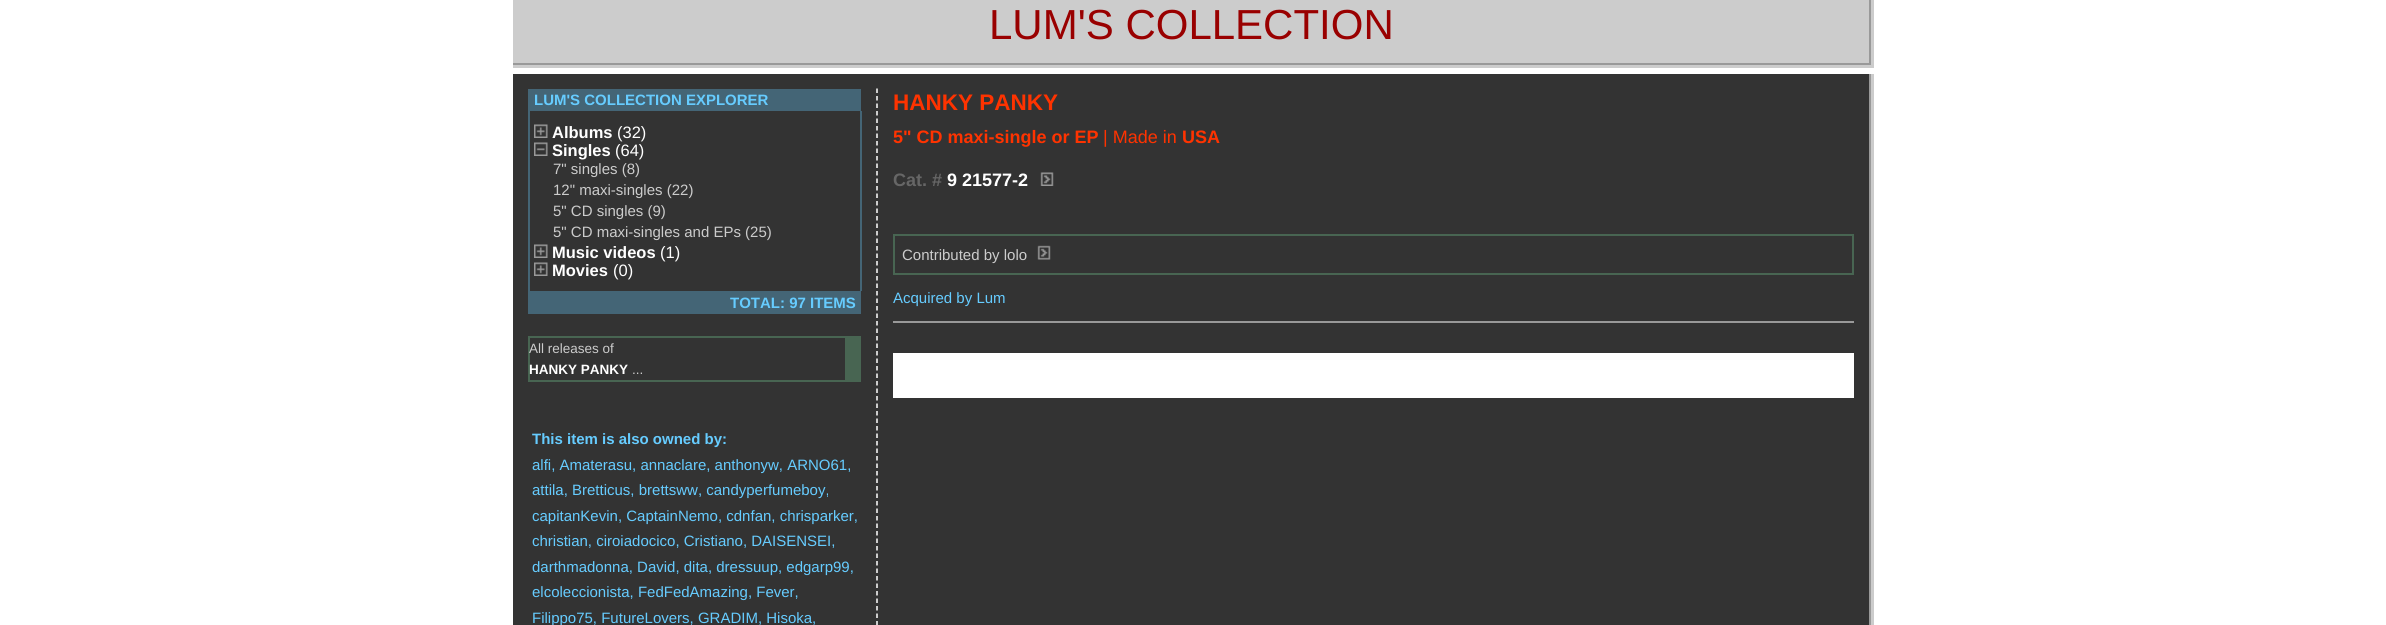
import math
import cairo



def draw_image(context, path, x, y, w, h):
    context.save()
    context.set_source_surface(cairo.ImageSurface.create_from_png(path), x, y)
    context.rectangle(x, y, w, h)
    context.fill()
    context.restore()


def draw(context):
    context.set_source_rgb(1, 1, 1)
    context.paint()
    context.set_source_rgb(153 / 255, 153 / 255, 153 / 255)
    context.rectangle(513, 0, 1358, 65)
    context.fill()
    context.set_source_rgb(204 / 255, 204 / 255, 204 / 255)
    context.rectangle(1871, 0, 3, 68)
    context.fill()
    context.rectangle(513, 65, 1361, 3)
    context.fill()
    context.rectangle(513, 0, 1356, 63)
    context.fill()
    context.set_source_rgb(153 / 255, 153 / 255, 153 / 255)
    context.rectangle(1869, 74, 2, 551)
    context.fill()
    context.set_source_rgb(204 / 255, 204 / 255, 204 / 255)
    context.rectangle(1871, 74, 3, 551)
    context.fill()
    context.set_source_rgb(51 / 255, 51 / 255, 51 / 255)
    context.rectangle(513, 74, 1356, 551)
    context.fill()
    context.set_source_rgb(68 / 255, 101 / 255, 118 / 255)
    context.rectangle(528, 89, 333, 22)
    context.fill()
    context.rectangle(860, 111, 2, 180)
    context.fill()
    context.rectangle(528, 111, 2, 180)
    context.fill()
    draw_image(context, "images/1.png", 534, 124, 14, 14)
    draw_image(context, "images/2.png", 534, 142, 14, 14)
    draw_image(context, "images/1.png", 534, 244, 14, 14)
    draw_image(context, "images/1.png", 534, 262, 14, 14)
    context.rectangle(528, 291, 333, 23)
    context.fill()
    context.set_source_rgb(72 / 255, 101 / 255, 82 / 255)
    context.rectangle(528, 336, 317, 2)
    context.fill()
    context.rectangle(845, 336, 16, 44)
    context.fill()
    context.rectangle(528, 380, 333, 2)
    context.fill()
    context.rectangle(528, 336, 2, 45)
    context.fill()
    context.new_path()
    context.move_to(877, 88.5)
    context.line_to(877, 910.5)
    context.set_source_rgb(1, 1, 1)
    context.set_line_width(1.5)
    context.set_dash([4.5, 3])
    context.stroke()
    context.set_source_rgb(153 / 255, 153 / 255, 153 / 255)
    context.rectangle(893, 321, 961, 2)
    context.fill()
    draw_image(context, "images/3.png", 1040, 172, 14, 14)
    context.rectangle(894, 235, 959, 39)
    context.set_source_rgb(72 / 255, 101 / 255, 82 / 255)
    context.set_line_width(2)
    context.set_dash([])
    context.stroke()
    draw_image(context, "images/4.png", 1037, 245, 14, 15)
    context.set_source_rgb(1, 1, 1)
    context.rectangle(893, 353, 961, 45)
    context.fill()
    context.select_font_face("Liberation Sans")
    context.set_font_size(42)
    context.set_source_rgb(153 / 255, 0, 0)
    context.move_to(989, 39)
    context.show_text("LUM'S COLLECTION")
    context.select_font_face("Liberation Sans", cairo.FontSlant.NORMAL, cairo.FontWeight.BOLD)
    context.set_font_size(15)
    context.set_source_rgb(102 / 255, 204 / 255, 1)
    context.move_to(534, 105)
    context.show_text("LUM'S COLLECTION EXPLORER")
    context.set_font_size(16.5)
    context.set_source_rgb(1, 1, 1)
    context.move_to(552, 138)
    context.show_text("Albums")
    context.select_font_face("Liberation Sans")
    context.move_to(617, 138)
    context.show_text("(32)")
    context.select_font_face("Liberation Sans", cairo.FontSlant.NORMAL, cairo.FontWeight.BOLD)
    context.move_to(552, 156)
    context.show_text("Singles")
    context.select_font_face("Liberation Sans")
    context.move_to(615, 156)
    context.show_text("(64)")
    context.set_font_size(15)
    context.set_source_rgb(204 / 255, 204 / 255, 204 / 255)
    context.move_to(553, 174)
    context.show_text("7\" singles (8)")
    context.move_to(553, 195)
    context.show_text("12\" maxi-singles (22)")
    context.move_to(553, 216)
    context.show_text("5\" CD singles (9)")
    context.move_to(553, 237)
    context.show_text("5\" CD maxi-singles and EPs (25)")
    context.select_font_face("Liberation Sans", cairo.FontSlant.NORMAL, cairo.FontWeight.BOLD)
    context.set_font_size(16.5)
    context.set_source_rgb(1, 1, 1)
    context.move_to(552, 258)
    context.show_text("Music videos")
    context.select_font_face("Liberation Sans")
    context.move_to(660, 258)
    context.show_text("(1)")
    context.select_font_face("Liberation Sans", cairo.FontSlant.NORMAL, cairo.FontWeight.BOLD)
    context.move_to(552, 276)
    context.show_text("Movies")
    context.select_font_face("Liberation Sans")
    context.move_to(613, 276)
    context.show_text("(0)")
    context.select_font_face("Liberation Sans", cairo.FontSlant.NORMAL, cairo.FontWeight.BOLD)
    context.set_font_size(15)
    context.set_source_rgb(102 / 255, 204 / 255, 1)
    context.move_to(730, 308)
    context.show_text("TOTAL: 97 ITEMS")
    context.select_font_face("Liberation Sans")
    context.set_font_size(13.5)
    context.set_source_rgb(204 / 255, 204 / 255, 204 / 255)
    context.move_to(529, 353)
    context.show_text("All releases of")
    context.select_font_face("Liberation Sans", cairo.FontSlant.NORMAL, cairo.FontWeight.BOLD)
    context.set_source_rgb(1, 1, 1)
    context.move_to(529, 374)
    context.show_text("HANKY PANKY")
    context.select_font_face("Liberation Sans")
    context.set_source_rgb(204 / 255, 204 / 255, 204 / 255)
    context.move_to(632, 374)
    context.show_text("...")
    context.select_font_face("Liberation Sans", cairo.FontSlant.NORMAL, cairo.FontWeight.BOLD)
    context.set_font_size(15)
    context.set_source_rgb(102 / 255, 204 / 255, 1)
    context.move_to(532, 444)
    context.show_text("This item is also owned by:")
    context.select_font_face("Liberation Sans")
    context.move_to(532, 470)
    context.show_text("alfi, Amaterasu, annaclare, anthonyw, ARNO61,")
    context.move_to(532, 495)
    context.show_text("attila, Bretticus, brettsww, candyperfumeboy,")
    context.move_to(532, 521)
    context.show_text("capitanKevin, CaptainNemo, cdnfan, chrisparker,")
    context.move_to(532, 546)
    context.show_text("christian, ciroiadocico, Cristiano, DAISENSEI,")
    context.move_to(532, 572)
    context.show_text("darthmadonna, David, dita, dressuup, edgarp99,")
    context.move_to(532, 597)
    context.show_text("elcoleccionista, FedFedAmazing, Fever,")
    context.move_to(532, 623)
    context.show_text("Filippo75, FutureLovers, GRADIM, Hisoka,")
    context.select_font_face("Liberation Sans", cairo.FontSlant.NORMAL, cairo.FontWeight.BOLD)
    context.set_font_size(22.5)
    context.set_source_rgb(1, 51 / 255, 0)
    context.move_to(893, 110)
    context.show_text("HANKY PANKY")
    context.set_font_size(18)
    context.move_to(893, 143)
    context.show_text("5\" CD maxi-single or EP")
    context.select_font_face("Liberation Sans")
    context.move_to(1103, 143)
    context.show_text("| Made in")
    context.select_font_face("Liberation Sans", cairo.FontSlant.NORMAL, cairo.FontWeight.BOLD)
    context.move_to(1182, 143)
    context.show_text("USA")
    context.set_source_rgb(102 / 255, 102 / 255, 102 / 255)
    context.move_to(893, 186)
    context.show_text("Cat. #")
    context.set_source_rgb(1, 1, 1)
    context.move_to(947, 186)
    context.show_text("9 21577-2")
    context.select_font_face("Liberation Sans")
    context.set_font_size(15)
    context.set_source_rgb(204 / 255, 204 / 255, 204 / 255)
    context.move_to(902, 260)
    context.show_text("Contributed by lolo")
    context.set_source_rgb(102 / 255, 204 / 255, 1)
    context.move_to(893, 303)
    context.show_text("Acquired by Lum")


surface = cairo.ImageSurface(cairo.Format.RGB24, 2386, 625)
context = cairo.Context(surface)
options = cairo.FontOptions()
options.set_hint_metrics(cairo.HintMetrics.OFF)
options.set_hint_style(cairo.HintStyle.NONE)
context.set_font_options(options)
context.set_miter_limit(4)
draw(context)
surface.write_to_png("out.png")
